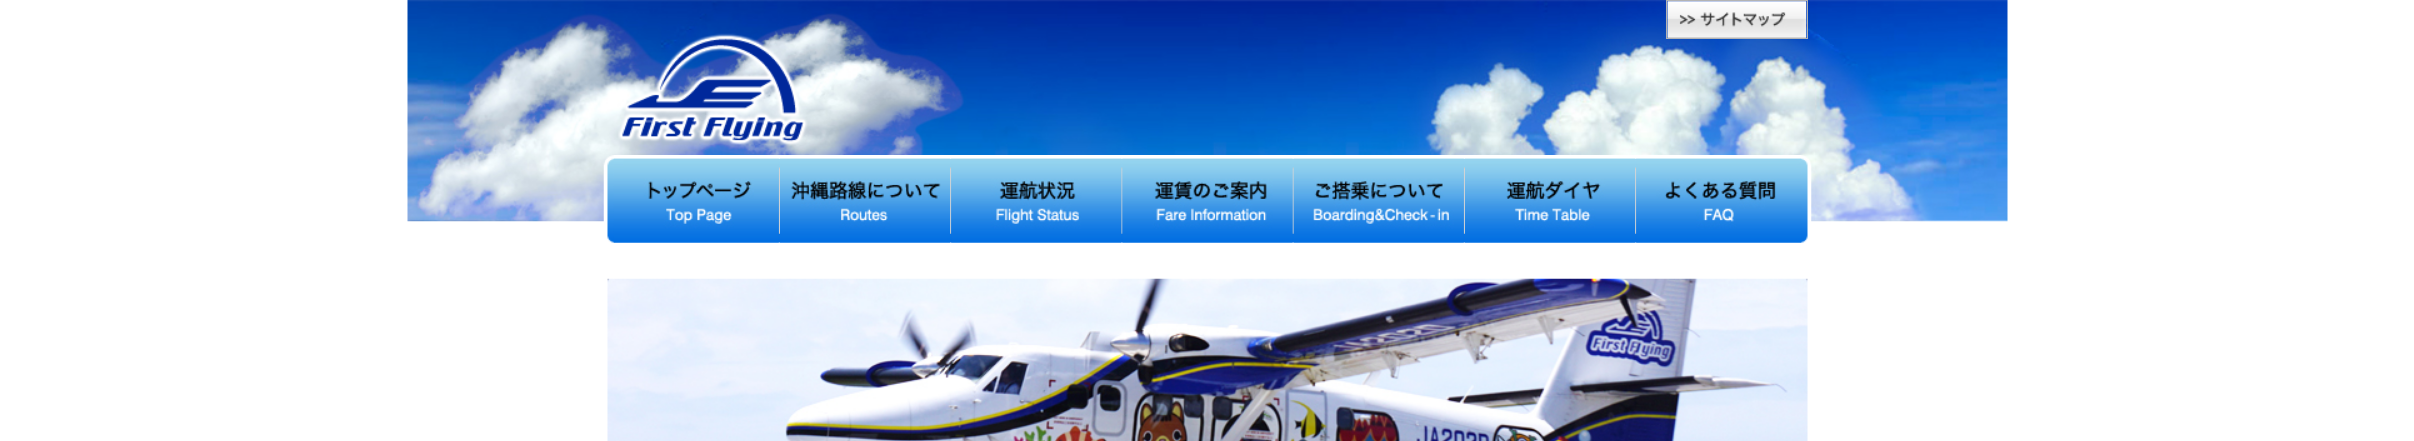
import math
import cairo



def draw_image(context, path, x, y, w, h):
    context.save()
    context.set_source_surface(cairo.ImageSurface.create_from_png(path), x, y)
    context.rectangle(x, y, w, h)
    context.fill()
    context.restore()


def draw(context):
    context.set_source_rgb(1, 1, 1)
    context.paint()
    draw_image(context, "images/1.png", 407, 0, 1601, 222)
    context.rectangle(1666.5, 0.5, 141, 38)
    context.set_source_rgb(179 / 255, 179 / 255, 179 / 255)
    context.set_line_width(1)
    context.stroke()
    draw_image(context, "images/2.png", 1667, 1, 140, 37)
    draw_image(context, "images/3.png", 618, 33, 190, 113)
    draw_image(context, "images/4.png", 603, 155, 1209, 88)
    draw_image(context, "images/5.png", 613, 158, 166, 85)
    draw_image(context, "images/6.png", 780, 158, 170, 85)
    draw_image(context, "images/7.png", 951, 158, 171, 85)
    draw_image(context, "images/8.png", 1122, 158, 171, 85)
    draw_image(context, "images/9.png", 1293, 158, 171, 85)
    draw_image(context, "images/10.png", 1465, 158, 170, 85)
    draw_image(context, "images/11.png", 1636, 158, 166, 85)
    draw_image(context, "images/12.png", 607, 278, 1201, 163)


surface = cairo.ImageSurface(cairo.Format.RGB24, 2414, 441)
context = cairo.Context(surface)
options = cairo.FontOptions()
options.set_hint_metrics(cairo.HintMetrics.OFF)
options.set_hint_style(cairo.HintStyle.NONE)
context.set_font_options(options)
context.set_miter_limit(4)
draw(context)
surface.write_to_png("out.png")
